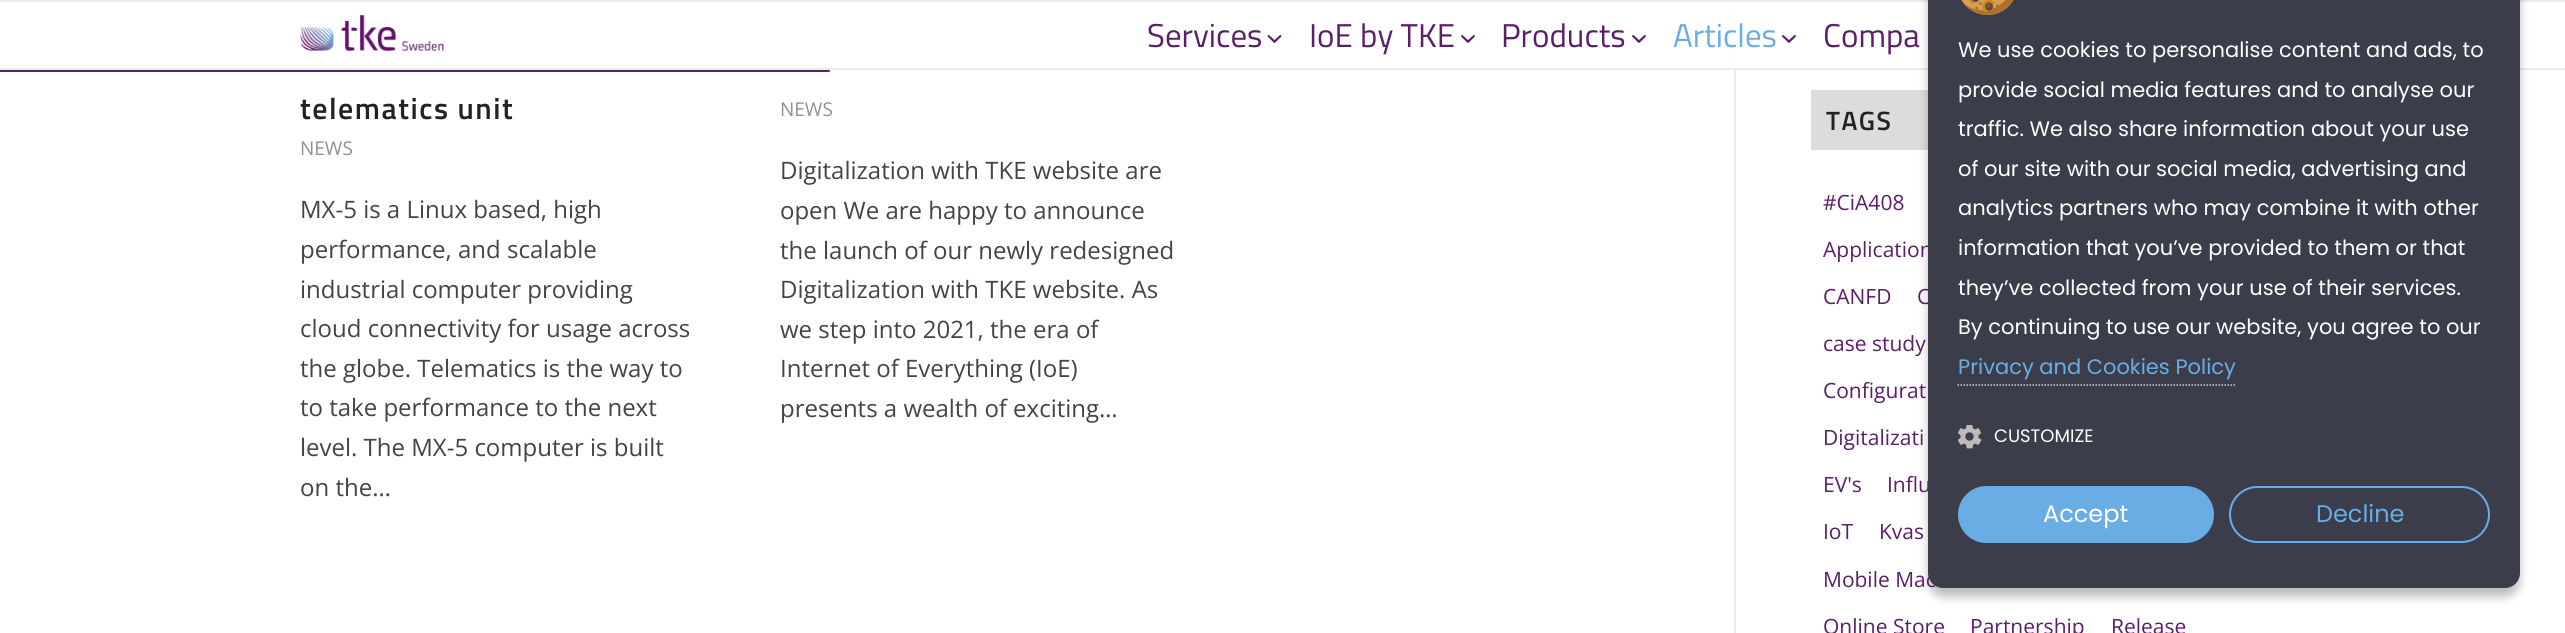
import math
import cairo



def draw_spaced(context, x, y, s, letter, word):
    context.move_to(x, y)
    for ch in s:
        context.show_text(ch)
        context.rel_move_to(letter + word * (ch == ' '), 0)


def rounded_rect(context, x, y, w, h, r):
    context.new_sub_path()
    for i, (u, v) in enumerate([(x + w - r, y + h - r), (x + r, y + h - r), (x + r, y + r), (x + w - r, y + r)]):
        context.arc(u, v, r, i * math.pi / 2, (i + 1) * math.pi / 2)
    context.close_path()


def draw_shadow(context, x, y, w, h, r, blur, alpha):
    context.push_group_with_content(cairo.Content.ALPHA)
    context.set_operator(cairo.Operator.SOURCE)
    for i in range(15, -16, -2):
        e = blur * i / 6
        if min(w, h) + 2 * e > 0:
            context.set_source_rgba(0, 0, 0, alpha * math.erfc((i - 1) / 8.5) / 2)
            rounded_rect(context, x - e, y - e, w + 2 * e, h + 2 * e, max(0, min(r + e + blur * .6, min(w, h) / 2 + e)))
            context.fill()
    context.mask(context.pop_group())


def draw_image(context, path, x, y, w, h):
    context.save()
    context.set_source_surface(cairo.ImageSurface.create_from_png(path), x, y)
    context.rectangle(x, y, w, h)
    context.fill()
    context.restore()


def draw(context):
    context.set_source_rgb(1, 1, 1)
    context.paint()
    context.set_source_rgb(235 / 255, 235 / 255, 235 / 255)
    context.rectangle(1734, 0, 2, 633)
    context.fill()
    context.set_source_rgba(1, 1, 1, 0.95)
    context.rectangle(1734, 2, 2, 66)
    context.fill()
    context.set_source_rgb(235 / 255, 235 / 255, 235 / 255)
    context.rectangle(0, 0, 2565, 2)
    context.fill()
    context.set_source_rgb(91 / 255, 31 / 255, 105 / 255)
    context.new_path()
    context.move_to(0, 69)
    context.line_to(828.5, 69)
    context.curve_to(829.5, 69, 830, 69.5, 830, 70.5)
    context.curve_to(830, 71.5, 829.5, 72, 828.5, 72)
    context.line_to(0, 72)
    context.close_path()
    context.fill()
    context.set_source_rgb(235 / 255, 235 / 255, 235 / 255)
    context.rectangle(0, 68, 2565, 2)
    context.fill()
    draw_image(context, "images/1.png", 300, 15, 144, 37)
    draw_image(context, "images/2.png", 1267, 35, 15, 8)
    draw_image(context, "images/3.png", 1461, 35, 14, 8)
    draw_image(context, "images/3.png", 1632, 35, 14, 8)
    draw_image(context, "images/3.png", 1782, 35, 14, 8)
    context.set_source_rgb(220 / 255, 220 / 255, 220 / 255)
    context.rectangle(1811, 90, 117, 60)
    context.fill()
    context.set_source_rgb(0, 0, 0)
    draw_shadow(context, 1928, -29, 592, 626, 15, 4.5, 0.25)
    context.select_font_face("Titillium Web")
    context.set_font_size(33)
    context.set_source_rgb(91 / 255, 31 / 255, 105 / 255)
    context.move_to(1147, 47)
    context.show_text("Services")
    context.move_to(1309, 47)
    context.show_text("IoE by TKE")
    context.move_to(1501, 47)
    context.show_text("Products")
    context.set_source_rgb(106 / 255, 173 / 255, 228 / 255)
    context.move_to(1673, 47)
    context.show_text("Articles")
    context.set_source_rgb(91 / 255, 31 / 255, 105 / 255)
    context.move_to(1823, 47)
    context.show_text("Compa")
    context.select_font_face("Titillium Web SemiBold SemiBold")
    context.set_font_size(30)
    context.set_source_rgb(34 / 255, 34 / 255, 34 / 255)
    draw_spaced(context, 300, 119, "telematics unit", 1.5, 0)
    context.select_font_face("Open Sans")
    context.set_font_size(19)
    context.set_source_rgb(145 / 255, 145 / 255, 145 / 255)
    context.move_to(300, 155)
    context.show_text("NEWS")
    context.set_font_size(24)
    context.set_source_rgb(68 / 255, 68 / 255, 68 / 255)
    context.move_to(300, 218)
    context.show_text("MX-5 is a Linux based, high")
    context.move_to(300, 258)
    context.show_text("performance, and scalable")
    context.move_to(300, 298)
    context.show_text("industrial computer providing")
    context.move_to(300, 337)
    context.show_text("cloud connectivity for usage across")
    context.move_to(300, 377)
    context.show_text("the globe. Telematics is the way to")
    context.move_to(300, 416)
    context.show_text("to take performance to the next")
    context.move_to(300, 456)
    context.show_text("level. The MX-5 computer is built")
    context.move_to(300, 496)
    context.show_text("on the…")
    context.set_font_size(19)
    context.set_source_rgb(145 / 255, 145 / 255, 145 / 255)
    context.move_to(780, 116)
    context.show_text("NEWS")
    context.set_font_size(24)
    context.set_source_rgb(68 / 255, 68 / 255, 68 / 255)
    context.move_to(780, 179)
    context.show_text("Digitalization with TKE website are")
    context.move_to(780, 219)
    context.show_text("open We are happy to announce")
    context.move_to(780, 259)
    context.show_text("the launch of our newly redesigned")
    context.move_to(780, 298)
    context.show_text("Digitalization with TKE website. As")
    context.move_to(780, 338)
    context.show_text("we step into 2021, the era of")
    context.move_to(780, 377)
    context.show_text("Internet of Everything (IoE)")
    context.move_to(780, 417)
    context.show_text("presents a wealth of exciting…")
    context.select_font_face("Titillium Web SemiBold SemiBold")
    context.set_font_size(26.5)
    context.set_source_rgb(34 / 255, 34 / 255, 34 / 255)
    draw_spaced(context, 1826, 130, "TAGS", 1.5, 0)
    context.select_font_face("Open Sans")
    context.set_font_size(21)
    context.set_source_rgb(91 / 255, 31 / 255, 105 / 255)
    context.move_to(1823, 210)
    context.show_text("#CiA408")
    context.move_to(1823, 257)
    context.show_text("Application")
    context.move_to(1823, 304)
    context.show_text("CANFD")
    context.move_to(1917, 304)
    context.show_text("C")
    context.move_to(1823, 351)
    context.show_text("case study")
    context.move_to(1823, 398)
    context.show_text("Configurat")
    context.move_to(1823, 445)
    context.show_text("Digitalizati")
    context.move_to(1823, 492)
    context.show_text("EV's")
    context.move_to(1887, 492)
    context.show_text("Influ")
    context.move_to(1823, 539)
    context.show_text("IoT")
    context.move_to(1879, 539)
    context.show_text("Kvas")
    context.move_to(1823, 587)
    context.show_text("Mobile Mac")
    context.move_to(1823, 634)
    context.show_text("Online Store")
    context.move_to(1970, 634)
    context.show_text("Partnership")
    context.move_to(2111, 634)
    context.show_text("Release")
    context.set_source_rgb(59 / 255, 62 / 255, 74 / 255)
    rounded_rect(context, 1928, -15, 592, 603, 15)
    context.fill()
    draw_image(context, "images/4.png", 1961, 0, 53, 15)
    context.select_font_face("Poppins")
    context.set_source_rgb(1, 1, 1)
    context.move_to(1958, 57)
    context.show_text("We use cookies to personalise content and ads, to")
    context.move_to(1958, 97)
    context.show_text("provide social media features and to analyse our")
    context.move_to(1958, 136)
    context.show_text("traffic. We also share information about your use")
    context.move_to(1958, 176)
    context.show_text("of our site with our social media, advertising and")
    context.move_to(1958, 215)
    context.show_text("analytics partners who may combine it with other")
    context.move_to(1958, 255)
    context.show_text("information that you’ve provided to them or that")
    context.move_to(1958, 295)
    context.show_text("they’ve collected from your use of their services.")
    context.move_to(1958, 334)
    context.show_text("By continuing to use our website, you agree to our")
    context.set_source_rgb(106 / 255, 173 / 255, 228 / 255)
    context.move_to(1958, 374)
    context.show_text("Privacy and Cookies Policy")
    context.new_path()
    context.move_to(1957.5, 385)
    context.line_to(2235, 385)
    context.set_source_rgb(206 / 255, 207 / 255, 210 / 255)
    context.set_line_width(1.5)
    context.set_dash([1.5, 1.5])
    context.stroke()
    draw_image(context, "images/5.png", 1958, 425, 24, 24)
    context.set_font_size(18)
    context.set_source_rgb(1, 1, 1)
    context.move_to(1994, 442)
    context.show_text("CUSTOMIZE")
    context.set_source_rgb(106 / 255, 173 / 255, 228 / 255)
    rounded_rect(context, 1959, 487, 254, 55, 27.5)
    context.fill_preserve()
    context.set_line_width(2)
    context.set_dash([])
    context.stroke()
    context.set_font_size(24)
    context.set_source_rgb(1, 1, 1)
    context.move_to(2043, 522)
    context.show_text("Accept")
    rounded_rect(context, 2230, 487, 259, 55, 27.5)
    context.set_source_rgb(106 / 255, 173 / 255, 228 / 255)
    context.stroke()
    context.move_to(2316, 522)
    context.show_text("Decline")


surface = cairo.ImageSurface(cairo.Format.RGB24, 2565, 633)
context = cairo.Context(surface)
options = cairo.FontOptions()
options.set_hint_metrics(cairo.HintMetrics.OFF)
options.set_hint_style(cairo.HintStyle.NONE)
context.set_font_options(options)
context.set_miter_limit(4)
draw(context)
surface.write_to_png("out.png")
